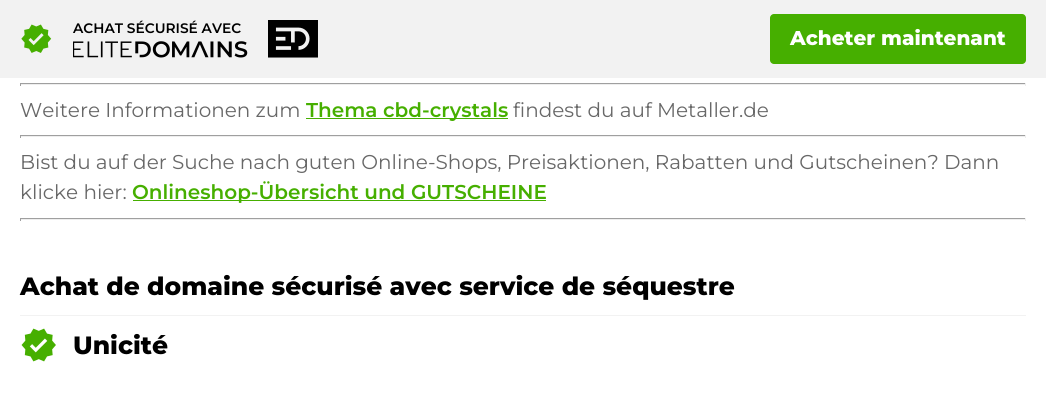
import math
import cairo



def rounded_rect(context, x, y, w, h, r):
    context.new_sub_path()
    for i, (u, v) in enumerate([(x + w - r, y + h - r), (x + r, y + h - r), (x + r, y + r), (x + w - r, y + r)]):
        context.arc(u, v, r, i * math.pi / 2, (i + 1) * math.pi / 2)
    context.close_path()


def draw_image(context, path, x, y, w, h):
    context.save()
    context.set_source_surface(cairo.ImageSurface.create_from_png(path), x, y)
    context.rectangle(x, y, w, h)
    context.fill()
    context.restore()


def draw(context):
    context.set_source_rgb(1, 1, 1)
    context.paint()
    context.set_source_rgb(242 / 255, 242 / 255, 242 / 255)
    context.rectangle(0, 0, 1046, 78)
    context.fill()
    draw_image(context, "images/1.png", 21, 24, 31, 29)
    draw_image(context, "images/2.png", 73, 41, 175, 17)
    draw_image(context, "images/3.png", 268, 20, 50, 38)
    context.set_source_rgb(70 / 255, 175 / 255, 0)
    rounded_rect(context, 770, 14, 256, 50, 4)
    context.fill()
    context.set_source_rgb(159 / 255, 159 / 255, 159 / 255)
    context.rectangle(20, 83, 1006, 1)
    context.fill()
    context.set_source_rgb(238 / 255, 238 / 255, 238 / 255)
    context.rectangle(1025, 83, 1, 3)
    context.fill()
    context.rectangle(20, 84, 1006, 1)
    context.fill()
    context.set_source_rgb(159 / 255, 159 / 255, 159 / 255)
    context.rectangle(20, 83, 1, 3)
    context.fill()
    context.set_source_rgb(70 / 255, 175 / 255, 0)
    context.rectangle(306, 118, 202, 1)
    context.fill()
    context.set_source_rgb(159 / 255, 159 / 255, 159 / 255)
    context.rectangle(20, 135, 1006, 1)
    context.fill()
    context.set_source_rgb(238 / 255, 238 / 255, 238 / 255)
    context.rectangle(1025, 135, 1, 3)
    context.fill()
    context.rectangle(20, 136, 1006, 1)
    context.fill()
    context.set_source_rgb(159 / 255, 159 / 255, 159 / 255)
    context.rectangle(20, 135, 1, 3)
    context.fill()
    context.set_source_rgb(70 / 255, 175 / 255, 0)
    context.rectangle(133, 200, 413, 1)
    context.fill()
    context.set_source_rgb(159 / 255, 159 / 255, 159 / 255)
    context.rectangle(20, 218, 1006, 1)
    context.fill()
    context.set_source_rgb(238 / 255, 238 / 255, 238 / 255)
    context.rectangle(1025, 218, 1, 3)
    context.fill()
    context.rectangle(20, 219, 1006, 1)
    context.fill()
    context.set_source_rgb(159 / 255, 159 / 255, 159 / 255)
    context.rectangle(20, 218, 1, 3)
    context.fill()
    context.set_source_rgb(242 / 255, 242 / 255, 242 / 255)
    context.rectangle(20, 315, 1006, 1)
    context.fill()
    draw_image(context, "images/4.png", 21, 328, 35, 34)
    context.select_font_face("Montserrat SemiBold")
    context.set_font_size(13.75)
    context.set_source_rgb(0, 0, 0)
    context.move_to(73, 33)
    context.show_text("ACHAT SÉCURISÉ AVEC")
    context.select_font_face("Montserrat ExtraBold")
    context.set_font_size(20)
    context.set_source_rgb(1, 1, 1)
    context.move_to(790, 45)
    context.show_text("Acheter maintenant")
    context.select_font_face("Montserrat")
    context.set_source_rgb(104 / 255, 104 / 255, 104 / 255)
    context.move_to(20, 117)
    context.show_text("Weitere Informationen zum")
    context.select_font_face("Montserrat SemiBold")
    context.set_source_rgb(70 / 255, 175 / 255, 0)
    context.move_to(306, 117)
    context.show_text("Thema cbd-crystals")
    context.select_font_face("Montserrat")
    context.set_source_rgb(104 / 255, 104 / 255, 104 / 255)
    context.move_to(513, 117)
    context.show_text("findest du auf Metaller.de")
    context.move_to(20, 169)
    context.show_text("Bist du auf der Suche nach guten Online-Shops, Preisaktionen, Rabatten und Gutscheinen? Dann")
    context.move_to(20, 199)
    context.show_text("klicke hier:")
    context.select_font_face("Montserrat SemiBold")
    context.set_source_rgb(70 / 255, 175 / 255, 0)
    context.move_to(132, 199)
    context.show_text("Onlineshop-Übersicht und GUTSCHEINE")
    context.select_font_face("Montserrat ExtraBold")
    context.set_font_size(25)
    context.set_source_rgb(0, 0, 0)
    context.move_to(20, 295)
    context.show_text("Achat de domaine sécurisé avec service de séquestre")
    context.move_to(73, 354)
    context.show_text("Unicité")


surface = cairo.ImageSurface(cairo.Format.RGB24, 1046, 401)
context = cairo.Context(surface)
options = cairo.FontOptions()
options.set_hint_metrics(cairo.HintMetrics.OFF)
options.set_hint_style(cairo.HintStyle.NONE)
context.set_font_options(options)
context.set_miter_limit(4)
draw(context)
surface.write_to_png("out.png")
